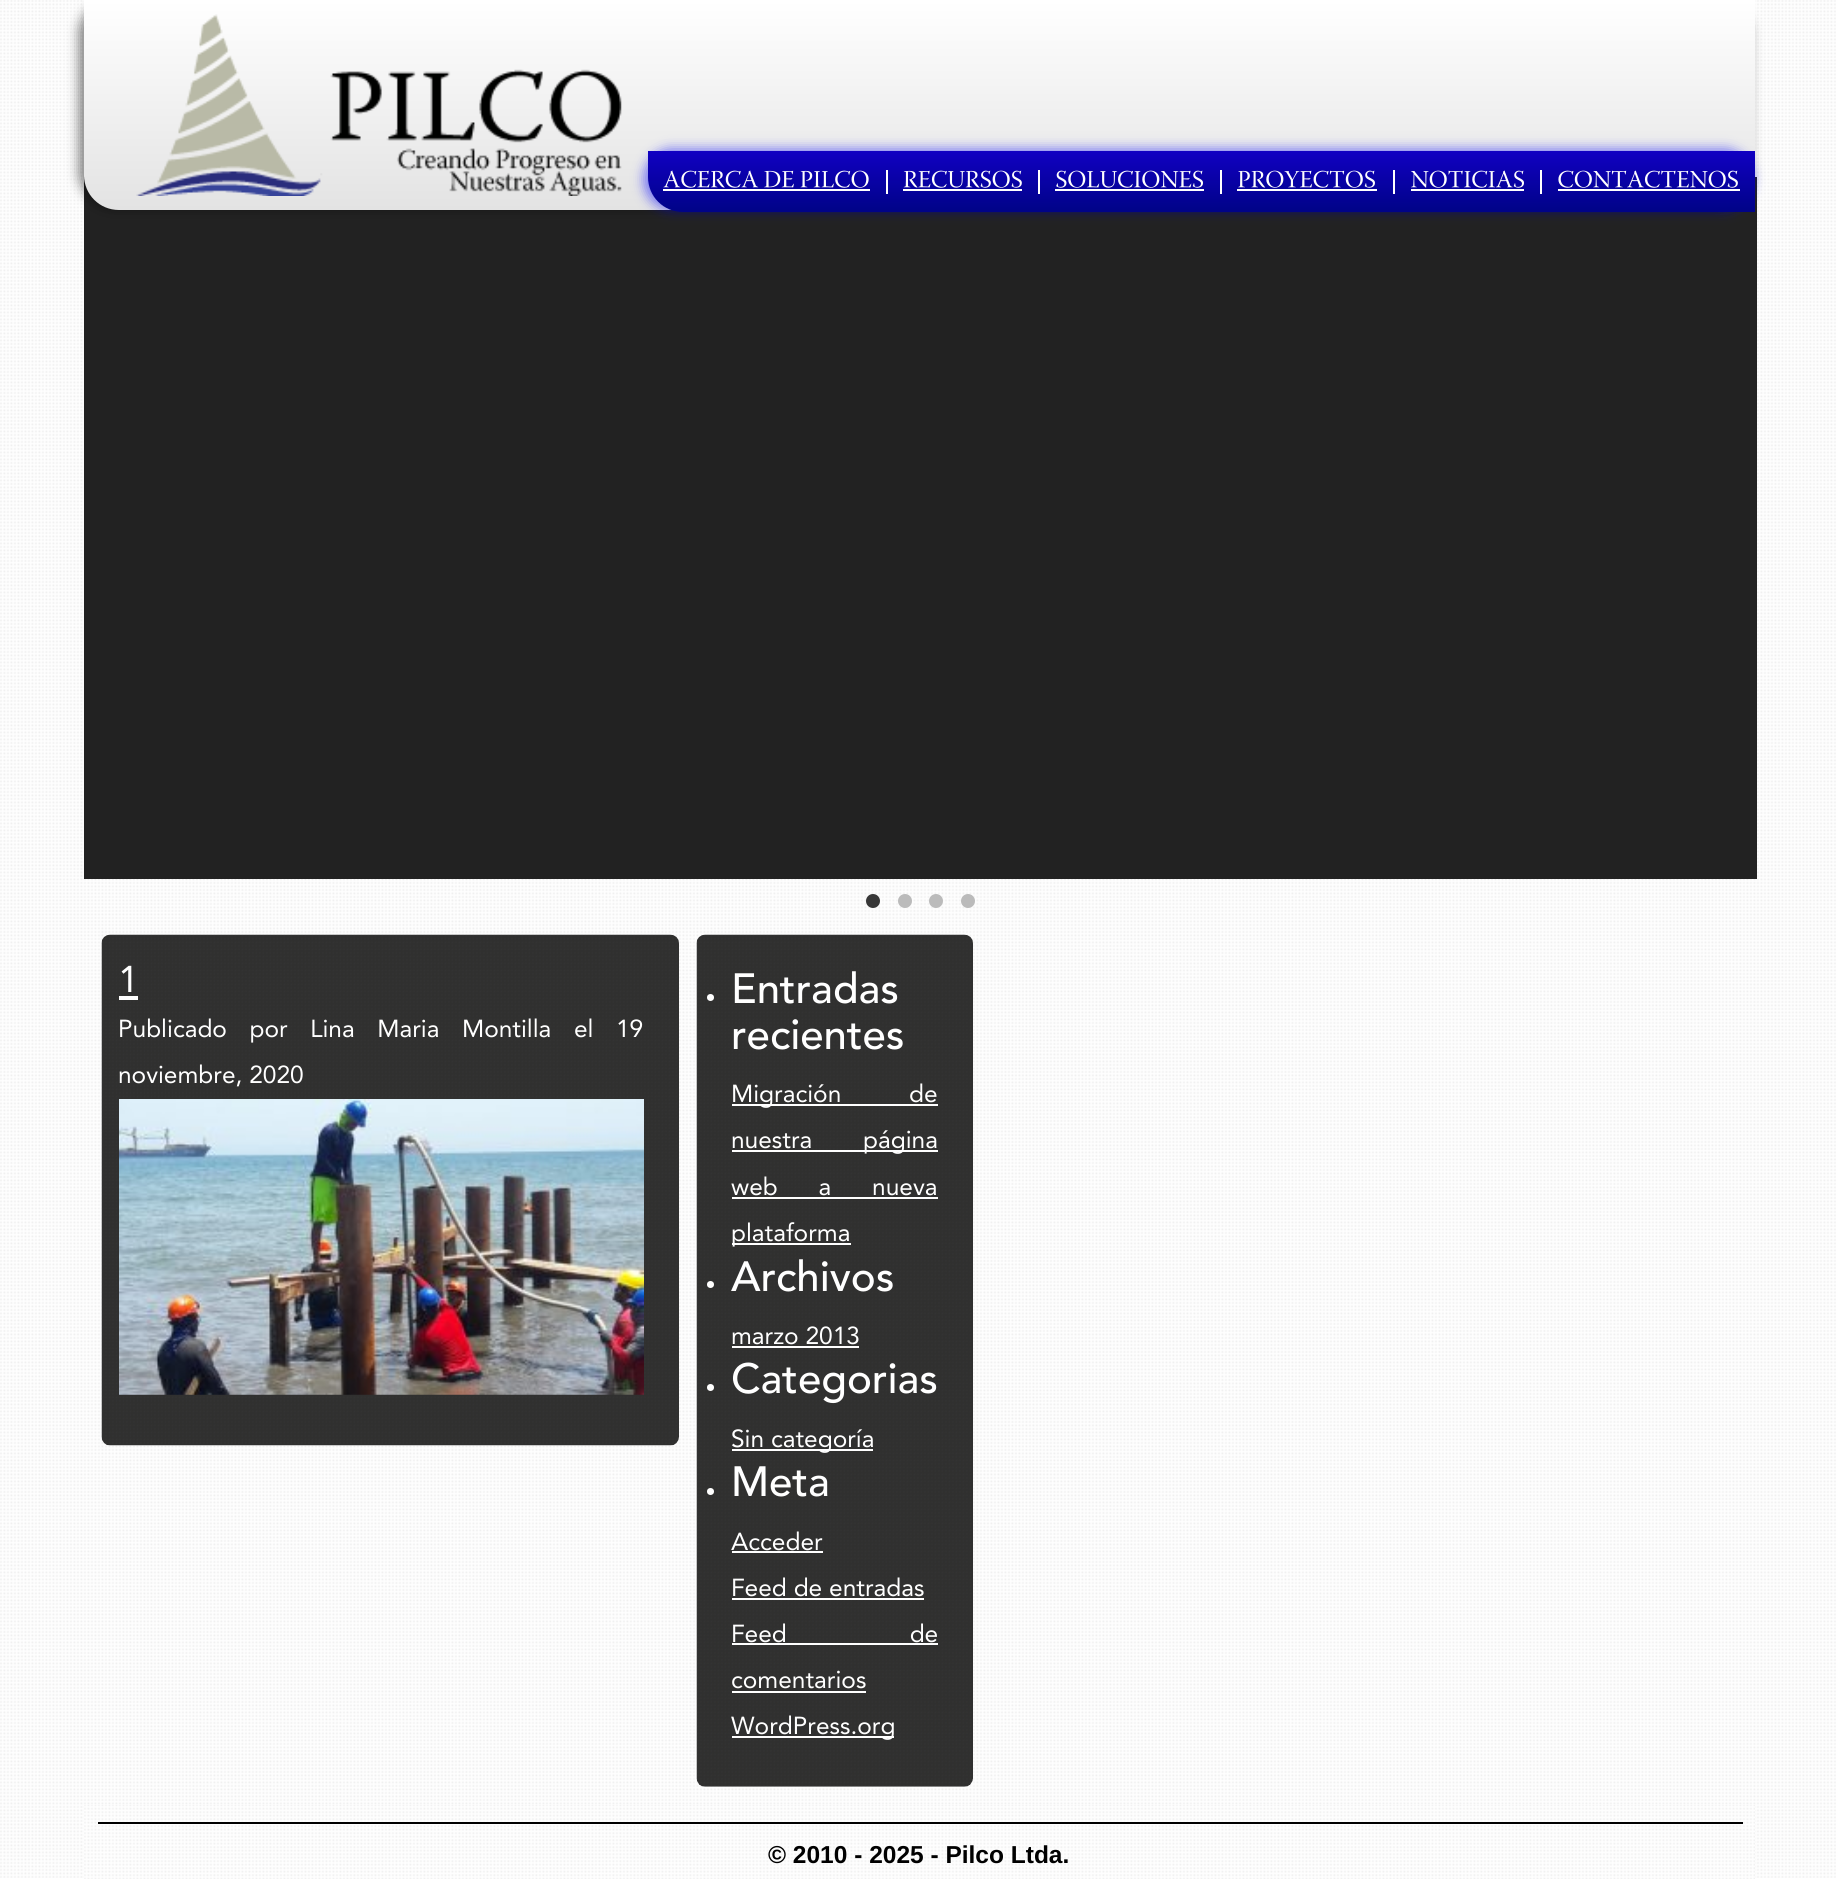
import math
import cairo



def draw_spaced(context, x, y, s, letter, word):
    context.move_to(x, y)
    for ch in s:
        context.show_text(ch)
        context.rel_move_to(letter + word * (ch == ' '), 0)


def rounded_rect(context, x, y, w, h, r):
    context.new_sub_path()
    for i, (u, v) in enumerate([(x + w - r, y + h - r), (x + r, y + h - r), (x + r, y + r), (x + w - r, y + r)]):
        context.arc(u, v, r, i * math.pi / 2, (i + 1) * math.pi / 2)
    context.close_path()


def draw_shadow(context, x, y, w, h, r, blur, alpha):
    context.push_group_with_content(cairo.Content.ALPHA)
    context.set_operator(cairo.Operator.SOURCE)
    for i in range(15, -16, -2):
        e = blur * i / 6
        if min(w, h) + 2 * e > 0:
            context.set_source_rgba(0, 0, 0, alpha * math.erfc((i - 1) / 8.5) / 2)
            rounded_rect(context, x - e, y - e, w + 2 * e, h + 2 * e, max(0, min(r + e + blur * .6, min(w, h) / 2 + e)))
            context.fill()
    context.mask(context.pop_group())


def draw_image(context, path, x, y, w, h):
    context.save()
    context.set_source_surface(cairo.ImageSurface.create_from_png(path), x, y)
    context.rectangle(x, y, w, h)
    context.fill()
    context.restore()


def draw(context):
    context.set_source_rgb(1, 1, 1)
    context.paint()
    draw_image(context, "images/1.png", 0, 0, 1836, 1878)
    context.set_source_rgb(34 / 255, 34 / 255, 34 / 255)
    context.rectangle(84, 177, 1673, 702)
    context.fill()
    context.set_source_rgb(0, 0, 0)
    draw_shadow(context, 79, -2, 1671, 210, 35, 6, 0.5)
    gradient = cairo.LinearGradient(920, 0, 920, 210)
    gradient.add_color_stop_rgba(0, 1, 1, 1, 1)
    gradient.add_color_stop_rgba(1, 227 / 255, 227 / 255, 227 / 255, 1)
    context.set_source(gradient)
    context.new_path()
    context.move_to(84, 0)
    context.line_to(1755, 0)
    context.line_to(1755, 210)
    context.line_to(119, 210)
    context.curve_to(99.5, 210, 84, 194.5, 84, 175)
    context.close_path()
    context.fill()
    draw_image(context, "images/2.png", 136, 14, 486, 182)
    context.set_source_rgb(0, 0, 1)
    draw_shadow(context, 644, 149, 1108, 61, 35, 6, 0.5)
    gradient = cairo.LinearGradient(1201, 150, 1201, 212)
    gradient.add_color_stop_rgba(0, 17 / 255, 0, 195 / 255, 1)
    gradient.add_color_stop_rgba(1, 0, 3 / 255, 135 / 255, 1)
    context.set_source(gradient)
    context.new_path()
    context.move_to(648, 151)
    context.line_to(1755, 151)
    context.line_to(1755, 212)
    context.line_to(683, 212)
    context.curve_to(663.5, 212, 648, 196.5, 648, 177)
    context.close_path()
    context.fill()
    draw_image(context, "images/3.png", 663, 170, 206, 18)
    context.set_source_rgb(1, 1, 1)
    context.rectangle(663, 189, 207, 2)
    context.fill()
    context.rectangle(886, 170, 2, 24)
    context.fill()
    draw_image(context, "images/4.png", 903, 170, 119, 18)
    context.rectangle(903, 189, 119, 2)
    context.fill()
    context.rectangle(1038, 170, 2, 24)
    context.fill()
    draw_image(context, "images/5.png", 1056, 170, 147, 18)
    context.rectangle(1055, 189, 149, 2)
    context.fill()
    context.rectangle(1220, 170, 2, 24)
    context.fill()
    draw_image(context, "images/6.png", 1238, 170, 137, 18)
    context.rectangle(1237, 189, 140, 2)
    context.fill()
    context.rectangle(1393, 170, 2, 24)
    context.fill()
    draw_image(context, "images/7.png", 1411, 170, 113, 18)
    context.rectangle(1411, 189, 113, 2)
    context.fill()
    context.rectangle(1540, 170, 2, 24)
    context.fill()
    draw_image(context, "images/8.png", 1558, 170, 180, 18)
    context.rectangle(1558, 189, 182, 2)
    context.fill()
    context.set_source_rgb(56 / 255, 56 / 255, 56 / 255)
    context.arc(873, 901, 7, 0, 2 * math.pi)
    context.fill()
    context.set_source_rgb(187 / 255, 187 / 255, 187 / 255)
    context.arc(905, 901, 7, 0, 2 * math.pi)
    context.fill()
    context.arc(936, 901, 7, 0, 2 * math.pi)
    context.fill()
    context.arc(968, 901, 7, 0, 2 * math.pi)
    context.fill()
    draw_image(context, "images/9.png", 101, 934, 578, 512)
    context.set_source_rgb(1, 1, 1)
    context.rectangle(119, 996, 19, 4)
    context.fill()
    draw_image(context, "images/10.png", 119, 1099, 525, 296)
    draw_image(context, "images/11.png", 696, 934, 277, 853)
    context.arc(710.5, 997.5, 3.5, 0, 2 * math.pi)
    context.fill()
    context.rectangle(732, 1104, 206, 2)
    context.fill()
    context.rectangle(732, 1150, 206, 2)
    context.fill()
    context.rectangle(732, 1197, 206, 2)
    context.fill()
    context.rectangle(732, 1243, 119, 2)
    context.fill()
    context.arc(710.5, 1284.5, 3.5, 0, 2 * math.pi)
    context.fill()
    context.rectangle(732, 1346, 127, 2)
    context.fill()
    context.arc(710.5, 1387.5, 3.5, 0, 2 * math.pi)
    context.fill()
    context.rectangle(732, 1449, 141, 2)
    context.fill()
    context.arc(710.5, 1491.5, 3.5, 0, 2 * math.pi)
    context.fill()
    context.rectangle(732, 1551, 91, 2)
    context.fill()
    context.rectangle(732, 1598, 192, 2)
    context.fill()
    context.rectangle(732, 1643, 206, 2)
    context.fill()
    context.rectangle(732, 1691, 134, 2)
    context.fill()
    context.rectangle(732, 1736, 162, 2)
    context.fill()
    draw_image(context, "images/12.png", 84, 1805, 1671, 74)
    context.set_source_rgb(0, 0, 0)
    context.rectangle(98, 1822, 1645, 2)
    context.fill()
    context.select_font_face("Avenir")
    context.set_font_size(37)
    context.set_source_rgb(1, 1, 1)
    context.move_to(118, 992)
    context.show_text("1")
    context.set_font_size(24.5)
    draw_spaced(context, 118, 1037, "Publicado por Lina Maria Montilla el 19", 0, 15.75)
    context.move_to(118, 1083)
    context.show_text("noviembre, 2020")
    context.select_font_face("Avenir Medium")
    context.set_font_size(42)
    context.move_to(731, 1003)
    context.show_text("Entradas")
    context.move_to(731, 1049)
    context.show_text("recientes")
    context.select_font_face("Avenir")
    context.set_font_size(24.5)
    draw_spaced(context, 731, 1102, "Migración de", 0, 61)
    draw_spaced(context, 731, 1148, "nuestra página", 0, 44)
    draw_spaced(context, 731, 1195, "web a nueva", 0, 34)
    context.move_to(731, 1241)
    context.show_text("plataforma")
    context.select_font_face("Avenir Medium")
    context.set_font_size(42)
    context.move_to(731, 1291)
    context.show_text("Archivos")
    context.select_font_face("Avenir")
    context.set_font_size(24.5)
    context.move_to(731, 1344)
    context.show_text("marzo 2013")
    context.select_font_face("Avenir Medium")
    context.set_font_size(42)
    context.move_to(731, 1393)
    context.show_text("Categorias")
    context.select_font_face("Avenir")
    context.set_font_size(24.5)
    context.move_to(731, 1447)
    context.show_text("Sin categoría")
    context.select_font_face("Avenir Medium")
    context.set_font_size(42)
    context.move_to(731, 1496)
    context.show_text("Meta")
    context.select_font_face("Avenir")
    context.set_font_size(24.5)
    context.move_to(731, 1550)
    context.show_text("Acceder")
    context.move_to(731, 1596)
    context.show_text("Feed de entradas")
    draw_spaced(context, 731, 1642, "Feed de", 0, 116)
    context.move_to(731, 1688)
    context.show_text("comentarios")
    context.move_to(731, 1734)
    context.show_text("WordPress.org")
    context.select_font_face("Liberation Sans", cairo.FontSlant.NORMAL, cairo.FontWeight.BOLD)
    context.set_source_rgb(0, 0, 0)
    context.move_to(768, 1863)
    context.show_text("© 2010 - 2025 - Pilco Ltda.")


surface = cairo.ImageSurface(cairo.Format.RGB24, 1837, 1879)
context = cairo.Context(surface)
options = cairo.FontOptions()
options.set_hint_metrics(cairo.HintMetrics.OFF)
options.set_hint_style(cairo.HintStyle.NONE)
context.set_font_options(options)
context.set_miter_limit(4)
draw(context)
surface.write_to_png("out.png")
